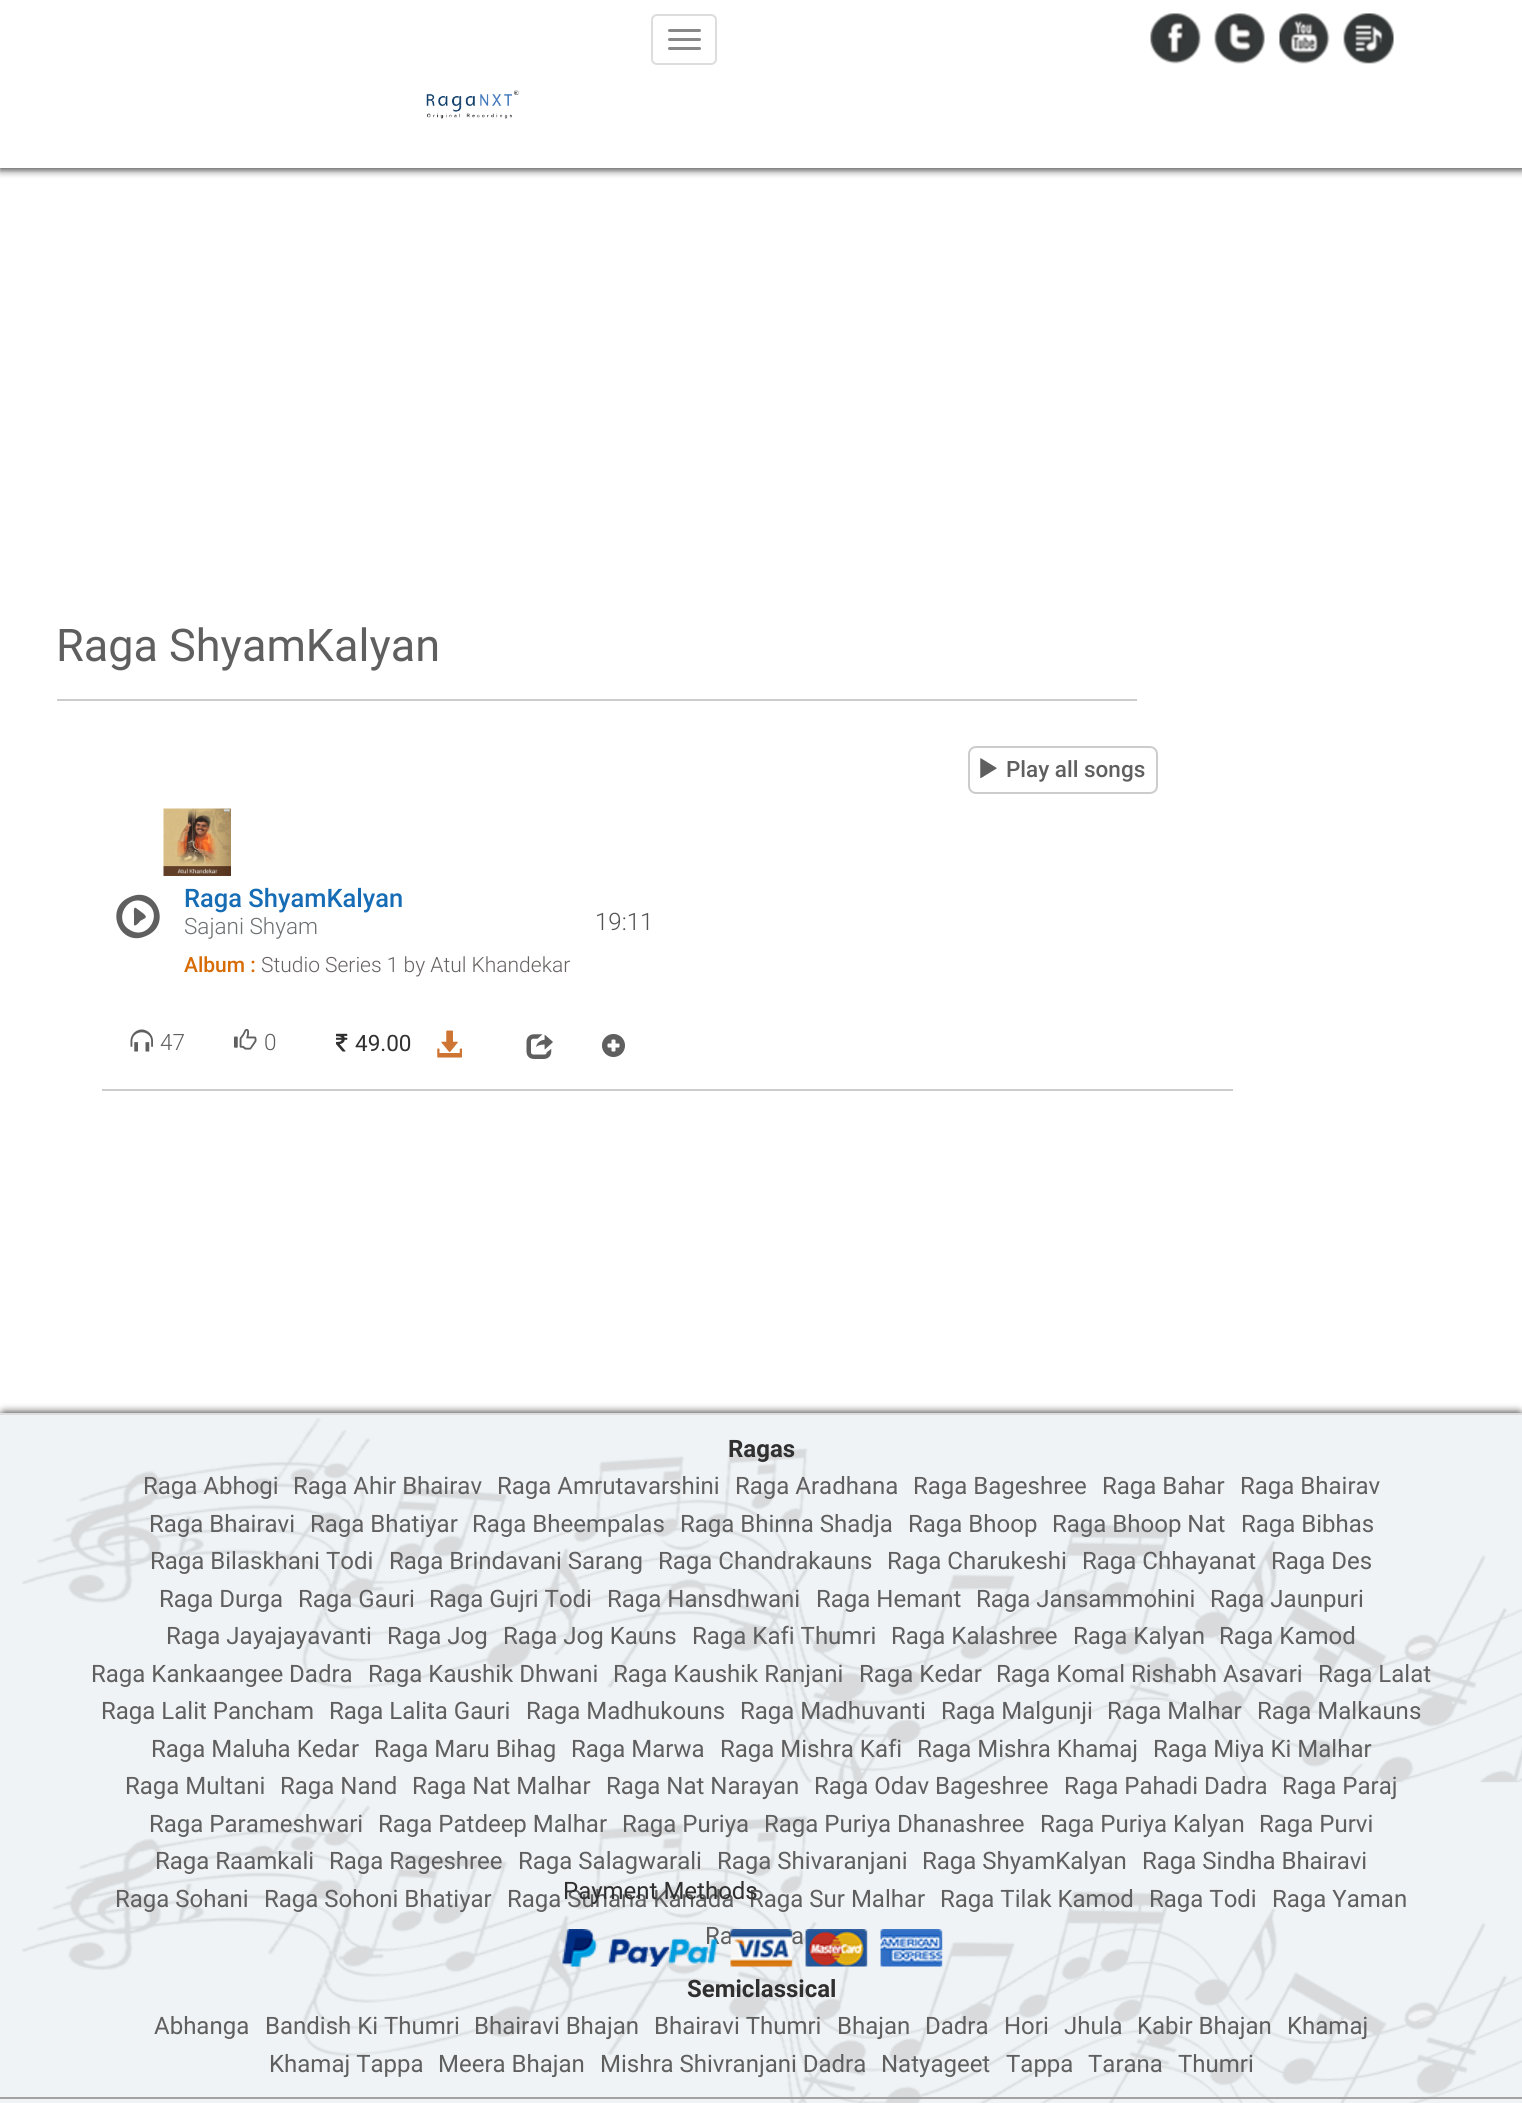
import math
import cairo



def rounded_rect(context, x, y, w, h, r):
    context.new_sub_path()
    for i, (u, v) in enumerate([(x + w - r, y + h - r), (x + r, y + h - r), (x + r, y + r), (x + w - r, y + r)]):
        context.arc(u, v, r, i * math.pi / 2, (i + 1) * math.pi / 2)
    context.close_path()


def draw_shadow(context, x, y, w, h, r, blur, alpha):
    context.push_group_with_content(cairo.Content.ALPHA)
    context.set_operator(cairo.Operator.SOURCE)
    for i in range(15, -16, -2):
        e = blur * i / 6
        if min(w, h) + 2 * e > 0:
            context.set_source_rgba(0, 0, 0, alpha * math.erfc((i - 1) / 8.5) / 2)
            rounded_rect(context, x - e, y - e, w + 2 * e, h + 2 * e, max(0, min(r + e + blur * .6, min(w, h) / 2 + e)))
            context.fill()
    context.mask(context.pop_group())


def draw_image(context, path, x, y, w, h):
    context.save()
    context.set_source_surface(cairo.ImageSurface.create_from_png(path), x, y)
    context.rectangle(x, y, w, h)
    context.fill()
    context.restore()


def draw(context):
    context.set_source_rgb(1, 1, 1)
    context.paint()
    context.save()
    context.rectangle(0, 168, 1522, 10)
    context.clip()
    context.set_source_rgb(0, 0, 0)
    draw_shadow(context, 0, 2, 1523, 168, 0, 4, 0.75)
    context.restore()
    rounded_rect(context, 652, 15, 64, 49, 5)
    context.set_source_rgb(221 / 255, 221 / 255, 221 / 255)
    context.stroke()
    context.set_source_rgb(136 / 255, 136 / 255, 136 / 255)
    rounded_rect(context, 668, 29, 33, 3, 1.5)
    context.fill()
    rounded_rect(context, 668, 38, 33, 3, 1.5)
    context.fill()
    rounded_rect(context, 668, 47, 33, 3, 1.5)
    context.fill()
    draw_image(context, "images/1.png", 426, 90, 93, 29)
    draw_image(context, "images/2.png", 1150, 13, 51, 51)
    draw_image(context, "images/3.png", 1214, 13, 51, 51)
    draw_image(context, "images/4.png", 1279, 13, 51, 51)
    draw_image(context, "images/5.png", 1343, 13, 51, 51)
    context.set_source_rgb(204 / 255, 204 / 255, 204 / 255)
    context.rectangle(57, 699, 1080, 2)
    context.fill()
    rounded_rect(context, 969, 747, 188, 46, 7)
    context.stroke()
    draw_image(context, "images/6.png", 980, 758, 17, 21)
    draw_image(context, "images/7.png", 163, 808, 68, 68)
    context.rectangle(102, 1089, 1131, 2)
    context.fill()
    context.set_source_rgb(95 / 255, 95 / 255, 95 / 255)
    context.new_path()
    context.move_to(130, 897)
    context.curve_to(156, 885, 173, 925, 146, 936)
    context.curve_to(120, 948, 103, 908, 130, 897)
    context.close_path()
    context.move_to(146, 903)
    context.curve_to(128, 892, 112, 920, 130, 930)
    context.curve_to(148, 941, 164, 913, 146, 903)
    context.close_path()
    context.move_to(136, 908)
    context.line_to(144, 914)
    context.curve_to(148, 918, 145, 918, 140, 921)
    context.curve_to(140, 922, 135, 927, 134, 925)
    context.line_to(134, 914)
    context.curve_to(134, 914, 133, 906, 136, 908)
    context.close_path()
    context.fill()
    draw_image(context, "images/8.png", 130, 1029, 23, 23)
    draw_image(context, "images/9.png", 234, 1029, 23, 21)
    draw_image(context, "images/10.png", 336, 1033, 12, 19)
    draw_image(context, "images/11.png", 437, 1030, 25, 28)
    draw_image(context, "images/12.png", 526, 1034, 27, 25)
    draw_image(context, "images/13.png", 602, 1034, 23, 23)
    context.set_source_rgb(0, 0, 0)
    draw_shadow(context, 0, 1412, 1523, 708, 5, 4, 0.75)
    context.set_source_rgb(240 / 255, 243 / 255, 245 / 255)
    context.rectangle(0, 1415, 1522, 688)
    context.fill()
    draw_image(context, "images/14.png", 22, 1418, 1500, 685)
    context.set_source_rgb(221 / 255, 221 / 255, 221 / 255)
    context.rectangle(0, 1413, 1522, 2)
    context.fill()
    context.set_source_rgb(163 / 255, 163 / 255, 163 / 255)
    context.rectangle(0, 2097, 1522, 2)
    context.fill()
    context.select_font_face("Roboto")
    context.set_font_size(45)
    context.set_source_rgb(95 / 255, 95 / 255, 95 / 255)
    context.move_to(56, 661)
    context.show_text("Raga ShyamKalyan")
    context.select_font_face("Roboto Medium")
    context.set_font_size(22.5)
    context.move_to(1006, 777)
    context.show_text("Play all songs")
    context.set_font_size(25.5)
    context.set_source_rgb(22 / 255, 109 / 255, 181 / 255)
    context.move_to(184, 907)
    context.show_text("Raga ShyamKalyan")
    context.select_font_face("Roboto Light")
    context.set_font_size(22.5)
    context.set_source_rgb(107 / 255, 111 / 255, 113 / 255)
    context.move_to(184, 934)
    context.show_text("Sajani Shyam")
    context.select_font_face("Roboto Medium")
    context.set_font_size(21)
    context.set_source_rgb(215 / 255, 108 / 255, 5 / 255)
    context.move_to(184, 972)
    context.show_text("Album :")
    context.select_font_face("Roboto Light")
    context.set_source_rgb(103 / 255, 98 / 255, 98 / 255)
    context.move_to(261, 972)
    context.show_text("Studio Series 1 by Atul Khandekar")
    context.set_font_size(24)
    context.set_source_rgb(84 / 255, 83 / 255, 83 / 255)
    context.move_to(595, 930)
    context.show_text("19:11")
    context.set_font_size(22.5)
    context.set_source_rgb(95 / 255, 95 / 255, 95 / 255)
    context.move_to(160, 1050)
    context.show_text("47")
    context.move_to(264, 1050)
    context.show_text("0")
    context.select_font_face("Roboto")
    context.set_source_rgb(49 / 255, 48 / 255, 48 / 255)
    context.move_to(355, 1051)
    context.show_text("49.00")
    context.select_font_face("Roboto", cairo.FontSlant.NORMAL, cairo.FontWeight.BOLD)
    context.set_font_size(24)
    context.move_to(728, 1457)
    context.show_text("Ragas")
    context.select_font_face("Roboto")
    context.set_source_rgb(95 / 255, 95 / 255, 95 / 255)
    context.move_to(143, 1494)
    context.show_text("Raga Abhogi")
    context.move_to(293, 1494)
    context.show_text("Raga Ahir Bhairav")
    context.move_to(497, 1494)
    context.show_text("Raga Amrutavarshini")
    context.move_to(735, 1494)
    context.show_text("Raga Aradhana")
    context.move_to(913, 1494)
    context.show_text("Raga Bageshree")
    context.move_to(1102, 1494)
    context.show_text("Raga Bahar")
    context.move_to(1240, 1494)
    context.show_text("Raga Bhairav")
    context.move_to(149, 1532)
    context.show_text("Raga Bhairavi")
    context.move_to(310, 1532)
    context.show_text("Raga Bhatiyar")
    context.move_to(472, 1532)
    context.show_text("Raga Bheempalas")
    context.move_to(680, 1532)
    context.show_text("Raga Bhinna Shadja")
    context.move_to(908, 1532)
    context.show_text("Raga Bhoop")
    context.move_to(1052, 1532)
    context.show_text("Raga Bhoop Nat")
    context.move_to(1241, 1532)
    context.show_text("Raga Bibhas")
    context.move_to(150, 1569)
    context.show_text("Raga Bilaskhani Todi")
    context.move_to(389, 1569)
    context.show_text("Raga Brindavani Sarang")
    context.move_to(658, 1569)
    context.show_text("Raga Chandrakauns")
    context.move_to(887, 1569)
    context.show_text("Raga Charukeshi")
    context.move_to(1082, 1569)
    context.show_text("Raga Chhayanat")
    context.move_to(1271, 1569)
    context.show_text("Raga Des")
    context.move_to(159, 1607)
    context.show_text("Raga Durga")
    context.move_to(298, 1607)
    context.show_text("Raga Gauri")
    context.move_to(429, 1607)
    context.show_text("Raga Gujri Todi")
    context.move_to(607, 1607)
    context.show_text("Raga Hansdhwani")
    context.move_to(816, 1607)
    context.show_text("Raga Hemant")
    context.move_to(976, 1607)
    context.show_text("Raga Jansammohini")
    context.move_to(1210, 1607)
    context.show_text("Raga Jaunpuri")
    context.move_to(166, 1644)
    context.show_text("Raga Jayajayavanti")
    context.move_to(387, 1644)
    context.show_text("Raga Jog")
    context.move_to(503, 1644)
    context.show_text("Raga Jog Kauns")
    context.move_to(692, 1644)
    context.show_text("Raga Kafi Thumri")
    context.move_to(891, 1644)
    context.show_text("Raga Kalashree")
    context.move_to(1073, 1644)
    context.show_text("Raga Kalyan")
    context.move_to(1219, 1644)
    context.show_text("Raga Kamod")
    context.move_to(91, 1682)
    context.show_text("Raga Kankaangee Dadra")
    context.move_to(368, 1682)
    context.show_text("Raga Kaushik Dhwani")
    context.move_to(613, 1682)
    context.show_text("Raga Kaushik Ranjani")
    context.move_to(859, 1682)
    context.show_text("Raga Kedar")
    context.move_to(996, 1682)
    context.show_text("Raga Komal Rishabh Asavari")
    context.move_to(1318, 1682)
    context.show_text("Raga Lalat")
    context.move_to(101, 1719)
    context.show_text("Raga Lalit Pancham")
    context.move_to(329, 1719)
    context.show_text("Raga Lalita Gauri")
    context.move_to(526, 1719)
    context.show_text("Raga Madhukouns")
    context.move_to(740, 1719)
    context.show_text("Raga Madhuvanti")
    context.move_to(941, 1719)
    context.show_text("Raga Malgunji")
    context.move_to(1107, 1719)
    context.show_text("Raga Malhar")
    context.move_to(1257, 1719)
    context.show_text("Raga Malkauns")
    context.move_to(151, 1757)
    context.show_text("Raga Maluha Kedar")
    context.move_to(374, 1757)
    context.show_text("Raga Maru Bihag")
    context.move_to(571, 1757)
    context.show_text("Raga Marwa")
    context.move_to(720, 1757)
    context.show_text("Raga Mishra Kafi")
    context.move_to(917, 1757)
    context.show_text("Raga Mishra Khamaj")
    context.move_to(1153, 1757)
    context.show_text("Raga Miya Ki Malhar")
    context.move_to(125, 1794)
    context.show_text("Raga Multani")
    context.move_to(280, 1794)
    context.show_text("Raga Nand")
    context.move_to(412, 1794)
    context.show_text("Raga Nat Malhar")
    context.move_to(606, 1794)
    context.show_text("Raga Nat Narayan")
    context.move_to(814, 1794)
    context.show_text("Raga Odav Bageshree")
    context.move_to(1064, 1794)
    context.show_text("Raga Pahadi Dadra")
    context.move_to(1282, 1794)
    context.show_text("Raga Paraj")
    context.move_to(149, 1832)
    context.show_text("Raga Parameshwari")
    context.move_to(378, 1832)
    context.show_text("Raga Patdeep Malhar")
    context.move_to(622, 1832)
    context.show_text("Raga Puriya")
    context.move_to(764, 1832)
    context.show_text("Raga Puriya Dhanashree")
    context.move_to(1040, 1832)
    context.show_text("Raga Puriya Kalyan")
    context.move_to(1259, 1832)
    context.show_text("Raga Purvi")
    context.move_to(155, 1869)
    context.show_text("Raga Raamkali")
    context.move_to(329, 1869)
    context.show_text("Raga Rageshree")
    context.move_to(518, 1869)
    context.show_text("Raga Salagwarali")
    context.move_to(717, 1869)
    context.show_text("Raga Shivaranjani")
    context.move_to(922, 1869)
    context.show_text("Raga ShyamKalyan")
    context.move_to(1142, 1869)
    context.show_text("Raga Sindha Bhairavi")
    context.move_to(115, 1907)
    context.show_text("Raga Sohani")
    context.move_to(264, 1907)
    context.show_text("Raga Sohoni Bhatiyar")
    context.move_to(507, 1907)
    context.show_text("Raga Suhana Kanada")
    context.move_to(749, 1907)
    context.show_text("Raga Sur Malhar")
    context.move_to(940, 1907)
    context.show_text("Raga Tilak Kamod")
    context.move_to(1149, 1907)
    context.show_text("Raga Todi")
    context.move_to(1272, 1907)
    context.show_text("Raga Yaman")
    context.move_to(705, 1944)
    context.show_text("Ra")
    context.move_to(791, 1944)
    context.show_text("a")
    context.select_font_face("Roboto", cairo.FontSlant.NORMAL, cairo.FontWeight.BOLD)
    context.set_source_rgb(49 / 255, 48 / 255, 48 / 255)
    context.move_to(687, 1997)
    context.show_text("Semiclassical")
    context.select_font_face("Roboto")
    context.set_source_rgb(95 / 255, 95 / 255, 95 / 255)
    context.move_to(154, 2034)
    context.show_text("Abhanga")
    context.move_to(265, 2034)
    context.show_text("Bandish Ki Thumri")
    context.move_to(474, 2034)
    context.show_text("Bhairavi Bhajan")
    context.move_to(654, 2034)
    context.show_text("Bhairavi Thumri")
    context.move_to(837, 2034)
    context.show_text("Bhajan")
    context.move_to(925, 2034)
    context.show_text("Dadra")
    context.move_to(1004, 2034)
    context.show_text("Hori")
    context.move_to(1064, 2034)
    context.show_text("Jhula")
    context.move_to(1137, 2034)
    context.show_text("Kabir Bhajan")
    context.move_to(1287, 2034)
    context.show_text("Khamaj")
    context.move_to(269, 2072)
    context.show_text("Khamaj Tappa")
    context.move_to(438, 2072)
    context.show_text("Meera Bhajan")
    context.move_to(600, 2072)
    context.show_text("Mishra Shivranjani Dadra")
    context.move_to(881, 2072)
    context.show_text("Natyageet")
    context.move_to(1006, 2072)
    context.show_text("Tappa")
    context.move_to(1088, 2072)
    context.show_text("Tarana")
    context.move_to(1178, 2072)
    context.show_text("Thumri")
    context.set_source_rgb(49 / 255, 48 / 255, 48 / 255)
    context.move_to(563, 1899)
    context.show_text("Payment Methods")
    draw_image(context, "images/15.png", 562, 1929, 381, 38)


surface = cairo.ImageSurface(cairo.Format.RGB24, 1522, 2103)
context = cairo.Context(surface)
options = cairo.FontOptions()
options.set_hint_metrics(cairo.HintMetrics.OFF)
options.set_hint_style(cairo.HintStyle.NONE)
context.set_font_options(options)
context.set_miter_limit(4)
draw(context)
surface.write_to_png("out.png")
